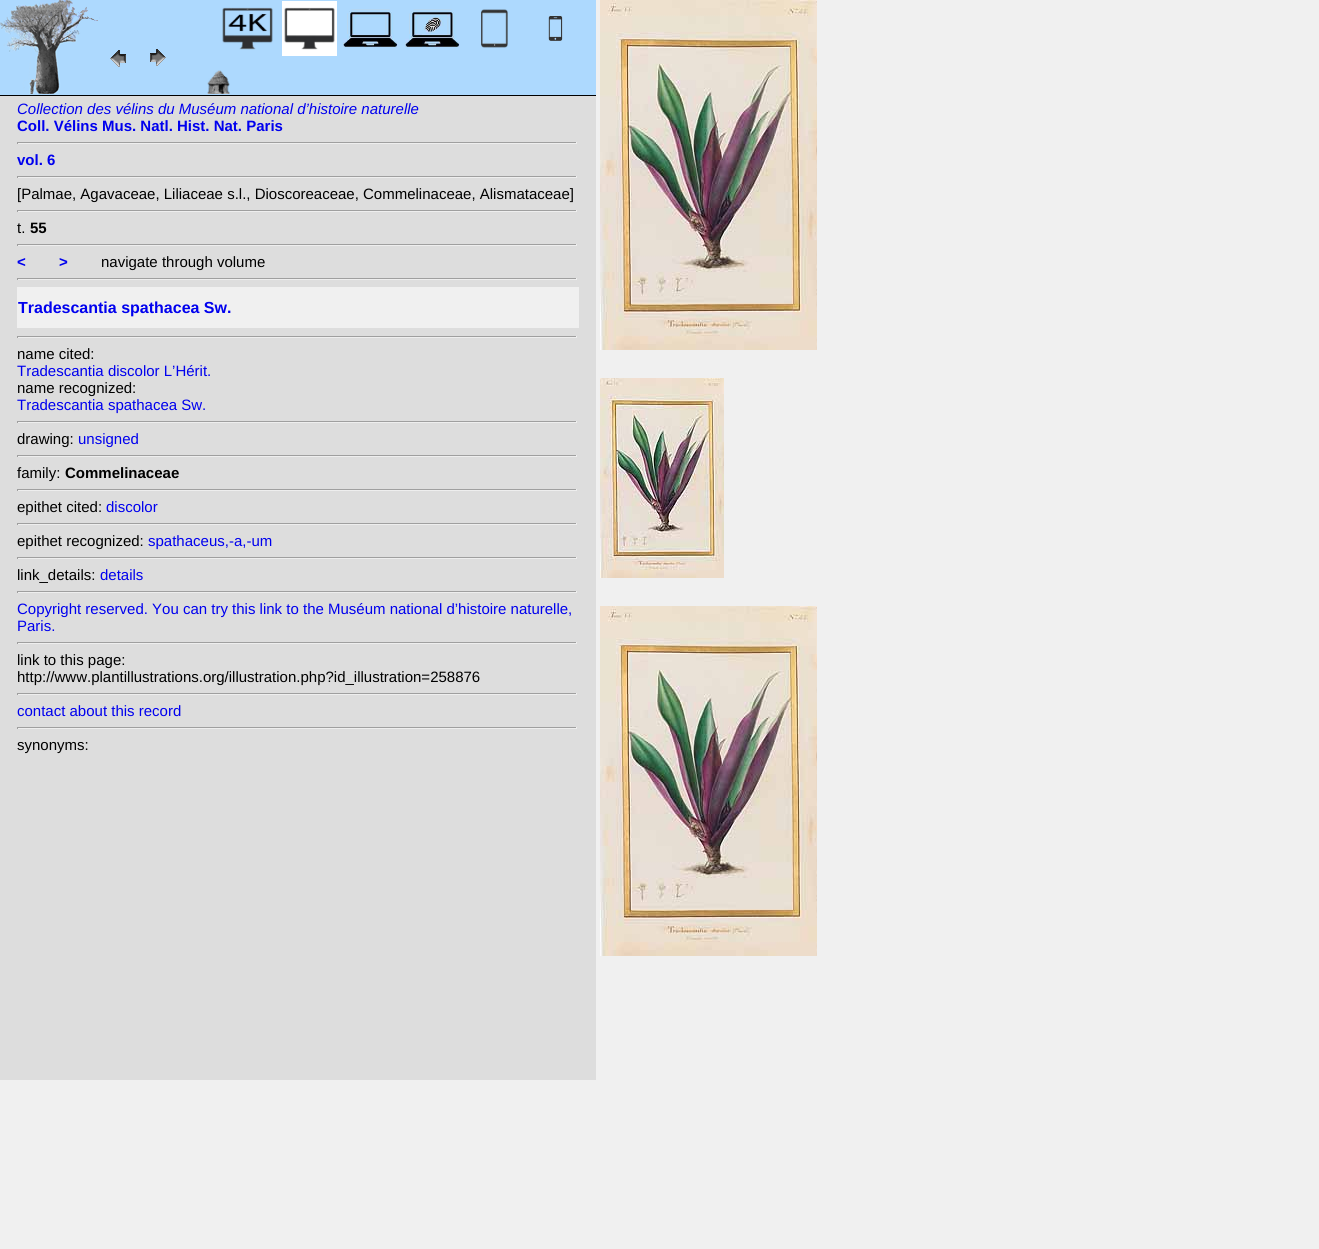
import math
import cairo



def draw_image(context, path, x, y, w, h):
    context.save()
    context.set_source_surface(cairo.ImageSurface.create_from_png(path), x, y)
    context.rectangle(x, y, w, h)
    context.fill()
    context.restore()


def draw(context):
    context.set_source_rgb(240 / 255, 240 / 255, 240 / 255)
    context.paint()
    context.set_source_rgb(221 / 255, 221 / 255, 221 / 255)
    context.rectangle(0, 96, 596, 984)
    context.fill()
    context.set_source_rgb(173 / 255, 217 / 255, 254 / 255)
    context.rectangle(0, 0, 596, 95)
    context.fill()
    context.set_source_rgb(0, 0, 0)
    context.rectangle(0, 95, 596, 1)
    context.fill()
    draw_image(context, "images/1.png", 0, 0, 100, 94)
    draw_image(context, "images/2.png", 110, 50, 16, 17)
    draw_image(context, "images/3.png", 150, 49, 16, 17)
    draw_image(context, "images/4.png", 222, 7, 51, 43)
    draw_image(context, "images/5.png", 282, 1, 55, 55)
    draw_image(context, "images/6.png", 343, 9, 55, 38)
    draw_image(context, "images/7.png", 405, 9, 55, 38)
    draw_image(context, "images/8.png", 481, 9, 27, 39)
    draw_image(context, "images/9.png", 548, 15, 15, 26)
    draw_image(context, "images/10.png", 207, 70, 23, 24)
    context.set_source_rgb(159 / 255, 159 / 255, 159 / 255)
    context.rectangle(17, 142, 560, 1)
    context.fill()
    context.set_source_rgb(238 / 255, 238 / 255, 238 / 255)
    context.rectangle(576, 142, 1, 2)
    context.fill()
    context.rectangle(17, 143, 560, 1)
    context.fill()
    context.set_source_rgb(159 / 255, 159 / 255, 159 / 255)
    context.rectangle(17, 142, 1, 2)
    context.fill()
    context.rectangle(17, 176, 560, 1)
    context.fill()
    context.set_source_rgb(238 / 255, 238 / 255, 238 / 255)
    context.rectangle(576, 176, 1, 2)
    context.fill()
    context.rectangle(17, 177, 560, 1)
    context.fill()
    context.set_source_rgb(159 / 255, 159 / 255, 159 / 255)
    context.rectangle(17, 176, 1, 2)
    context.fill()
    context.rectangle(17, 210, 560, 1)
    context.fill()
    context.set_source_rgb(238 / 255, 238 / 255, 238 / 255)
    context.rectangle(576, 210, 1, 2)
    context.fill()
    context.rectangle(17, 211, 560, 1)
    context.fill()
    context.set_source_rgb(159 / 255, 159 / 255, 159 / 255)
    context.rectangle(17, 210, 1, 2)
    context.fill()
    context.rectangle(17, 244, 560, 1)
    context.fill()
    context.set_source_rgb(238 / 255, 238 / 255, 238 / 255)
    context.rectangle(576, 244, 1, 2)
    context.fill()
    context.rectangle(17, 245, 560, 1)
    context.fill()
    context.set_source_rgb(159 / 255, 159 / 255, 159 / 255)
    context.rectangle(17, 244, 1, 2)
    context.fill()
    context.rectangle(17, 278, 560, 1)
    context.fill()
    context.set_source_rgb(238 / 255, 238 / 255, 238 / 255)
    context.rectangle(576, 278, 1, 2)
    context.fill()
    context.rectangle(17, 279, 560, 1)
    context.fill()
    context.set_source_rgb(159 / 255, 159 / 255, 159 / 255)
    context.rectangle(17, 278, 1, 2)
    context.fill()
    context.set_source_rgb(240 / 255, 240 / 255, 240 / 255)
    context.rectangle(17, 287, 562, 41)
    context.fill()
    context.set_source_rgb(159 / 255, 159 / 255, 159 / 255)
    context.rectangle(17, 336, 560, 1)
    context.fill()
    context.set_source_rgb(238 / 255, 238 / 255, 238 / 255)
    context.rectangle(576, 336, 1, 2)
    context.fill()
    context.rectangle(17, 337, 560, 1)
    context.fill()
    context.set_source_rgb(159 / 255, 159 / 255, 159 / 255)
    context.rectangle(17, 336, 1, 2)
    context.fill()
    context.rectangle(17, 421, 560, 1)
    context.fill()
    context.set_source_rgb(238 / 255, 238 / 255, 238 / 255)
    context.rectangle(576, 421, 1, 2)
    context.fill()
    context.rectangle(17, 422, 560, 1)
    context.fill()
    context.set_source_rgb(159 / 255, 159 / 255, 159 / 255)
    context.rectangle(17, 421, 1, 2)
    context.fill()
    context.rectangle(17, 455, 560, 1)
    context.fill()
    context.set_source_rgb(238 / 255, 238 / 255, 238 / 255)
    context.rectangle(576, 455, 1, 2)
    context.fill()
    context.rectangle(17, 456, 560, 1)
    context.fill()
    context.set_source_rgb(159 / 255, 159 / 255, 159 / 255)
    context.rectangle(17, 455, 1, 2)
    context.fill()
    context.rectangle(17, 489, 560, 1)
    context.fill()
    context.set_source_rgb(238 / 255, 238 / 255, 238 / 255)
    context.rectangle(576, 489, 1, 2)
    context.fill()
    context.rectangle(17, 490, 560, 1)
    context.fill()
    context.set_source_rgb(159 / 255, 159 / 255, 159 / 255)
    context.rectangle(17, 489, 1, 2)
    context.fill()
    context.rectangle(17, 523, 560, 1)
    context.fill()
    context.set_source_rgb(238 / 255, 238 / 255, 238 / 255)
    context.rectangle(576, 523, 1, 2)
    context.fill()
    context.rectangle(17, 524, 560, 1)
    context.fill()
    context.set_source_rgb(159 / 255, 159 / 255, 159 / 255)
    context.rectangle(17, 523, 1, 2)
    context.fill()
    context.rectangle(17, 557, 560, 1)
    context.fill()
    context.set_source_rgb(238 / 255, 238 / 255, 238 / 255)
    context.rectangle(576, 557, 1, 2)
    context.fill()
    context.rectangle(17, 558, 560, 1)
    context.fill()
    context.set_source_rgb(159 / 255, 159 / 255, 159 / 255)
    context.rectangle(17, 557, 1, 2)
    context.fill()
    context.rectangle(17, 591, 560, 1)
    context.fill()
    context.set_source_rgb(238 / 255, 238 / 255, 238 / 255)
    context.rectangle(576, 591, 1, 2)
    context.fill()
    context.rectangle(17, 592, 560, 1)
    context.fill()
    context.set_source_rgb(159 / 255, 159 / 255, 159 / 255)
    context.rectangle(17, 591, 1, 2)
    context.fill()
    context.rectangle(17, 642, 560, 1)
    context.fill()
    context.set_source_rgb(238 / 255, 238 / 255, 238 / 255)
    context.rectangle(576, 642, 1, 2)
    context.fill()
    context.rectangle(17, 643, 560, 1)
    context.fill()
    context.set_source_rgb(159 / 255, 159 / 255, 159 / 255)
    context.rectangle(17, 642, 1, 2)
    context.fill()
    context.rectangle(17, 693, 560, 1)
    context.fill()
    context.set_source_rgb(238 / 255, 238 / 255, 238 / 255)
    context.rectangle(576, 693, 1, 2)
    context.fill()
    context.rectangle(17, 694, 560, 1)
    context.fill()
    context.set_source_rgb(159 / 255, 159 / 255, 159 / 255)
    context.rectangle(17, 693, 1, 2)
    context.fill()
    context.rectangle(17, 727, 560, 1)
    context.fill()
    context.set_source_rgb(238 / 255, 238 / 255, 238 / 255)
    context.rectangle(576, 727, 1, 2)
    context.fill()
    context.rectangle(17, 728, 560, 1)
    context.fill()
    context.set_source_rgb(159 / 255, 159 / 255, 159 / 255)
    context.rectangle(17, 727, 1, 2)
    context.fill()
    draw_image(context, "images/11.png", 600, 0, 217, 350)
    draw_image(context, "images/12.png", 600, 378, 124, 200)
    draw_image(context, "images/11.png", 600, 606, 217, 350)
    context.select_font_face("Liberation Sans", cairo.FontSlant.ITALIC)
    context.set_font_size(15)
    context.set_source_rgb(0, 0, 238 / 255)
    context.move_to(17, 114)
    context.show_text("Collection des vélins du Muséum national d’histoire naturelle")
    context.select_font_face("Liberation Sans", cairo.FontSlant.NORMAL, cairo.FontWeight.BOLD)
    context.move_to(17, 131)
    context.show_text("Coll. Vélins Mus. Natl. Hist. Nat. Paris")
    context.move_to(17, 165)
    context.show_text("vol. 6")
    context.select_font_face("Liberation Sans")
    context.set_source_rgb(0, 0, 0)
    context.move_to(17, 199)
    context.show_text("[Palmae, Agavaceae, Liliaceae s.l., Dioscoreaceae, Commelinaceae, Alismataceae]")
    context.move_to(17, 233)
    context.show_text("t.")
    context.select_font_face("Liberation Sans", cairo.FontSlant.NORMAL, cairo.FontWeight.BOLD)
    context.move_to(30, 233)
    context.show_text("55")
    context.set_source_rgb(0, 0, 238 / 255)
    context.move_to(17, 267)
    context.show_text("<")
    context.move_to(59, 267)
    context.show_text(">")
    context.select_font_face("Liberation Sans")
    context.set_source_rgb(0, 0, 0)
    context.move_to(101, 267)
    context.show_text("navigate through volume")
    context.select_font_face("Liberation Sans", cairo.FontSlant.NORMAL, cairo.FontWeight.BOLD)
    context.set_font_size(16)
    context.set_source_rgb(0, 0, 238 / 255)
    context.move_to(18, 313)
    context.show_text("Tradescantia spathacea Sw.")
    context.select_font_face("Liberation Sans")
    context.set_font_size(15)
    context.set_source_rgb(0, 0, 0)
    context.move_to(17, 359)
    context.show_text("name cited:")
    context.set_source_rgb(0, 0, 238 / 255)
    context.move_to(17, 376)
    context.show_text("Tradescantia discolor L’Hérit.")
    context.set_source_rgb(0, 0, 0)
    context.move_to(17, 393)
    context.show_text("name recognized:")
    context.set_source_rgb(0, 0, 238 / 255)
    context.move_to(17, 410)
    context.show_text("Tradescantia spathacea Sw.")
    context.set_source_rgb(0, 0, 0)
    context.move_to(17, 444)
    context.show_text("drawing:")
    context.set_source_rgb(0, 0, 238 / 255)
    context.move_to(78, 444)
    context.show_text("unsigned")
    context.set_source_rgb(0, 0, 0)
    context.move_to(17, 478)
    context.show_text("family:")
    context.select_font_face("Liberation Sans", cairo.FontSlant.NORMAL, cairo.FontWeight.BOLD)
    context.move_to(65, 478)
    context.show_text("Commelinaceae")
    context.select_font_face("Liberation Sans")
    context.move_to(17, 512)
    context.show_text("epithet cited:")
    context.set_source_rgb(0, 0, 238 / 255)
    context.move_to(106, 512)
    context.show_text("discolor")
    context.set_source_rgb(0, 0, 0)
    context.move_to(17, 546)
    context.show_text("epithet recognized:")
    context.set_source_rgb(0, 0, 238 / 255)
    context.move_to(148, 546)
    context.show_text("spathaceus,-a,-um")
    context.set_source_rgb(0, 0, 0)
    context.move_to(17, 580)
    context.show_text("link_details:")
    context.set_source_rgb(0, 0, 238 / 255)
    context.move_to(100, 580)
    context.show_text("details")
    context.move_to(17, 614)
    context.show_text("Copyright reserved. You can try this link to the Muséum national d’histoire naturelle,")
    context.move_to(17, 631)
    context.show_text("Paris.")
    context.set_source_rgb(0, 0, 0)
    context.move_to(17, 665)
    context.show_text("link to this page:")
    context.move_to(17, 682)
    context.show_text("http://www.plantillustrations.org/illustration.php?id_illustration=258876")
    context.set_source_rgb(0, 0, 238 / 255)
    context.move_to(17, 716)
    context.show_text("contact about this record")
    context.set_source_rgb(0, 0, 0)
    context.move_to(17, 750)
    context.show_text("synonyms:")


surface = cairo.ImageSurface(cairo.Format.RGB24, 1319, 1249)
context = cairo.Context(surface)
options = cairo.FontOptions()
options.set_hint_metrics(cairo.HintMetrics.OFF)
options.set_hint_style(cairo.HintStyle.NONE)
context.set_font_options(options)
context.set_miter_limit(4)
draw(context)
surface.write_to_png("out.png")
